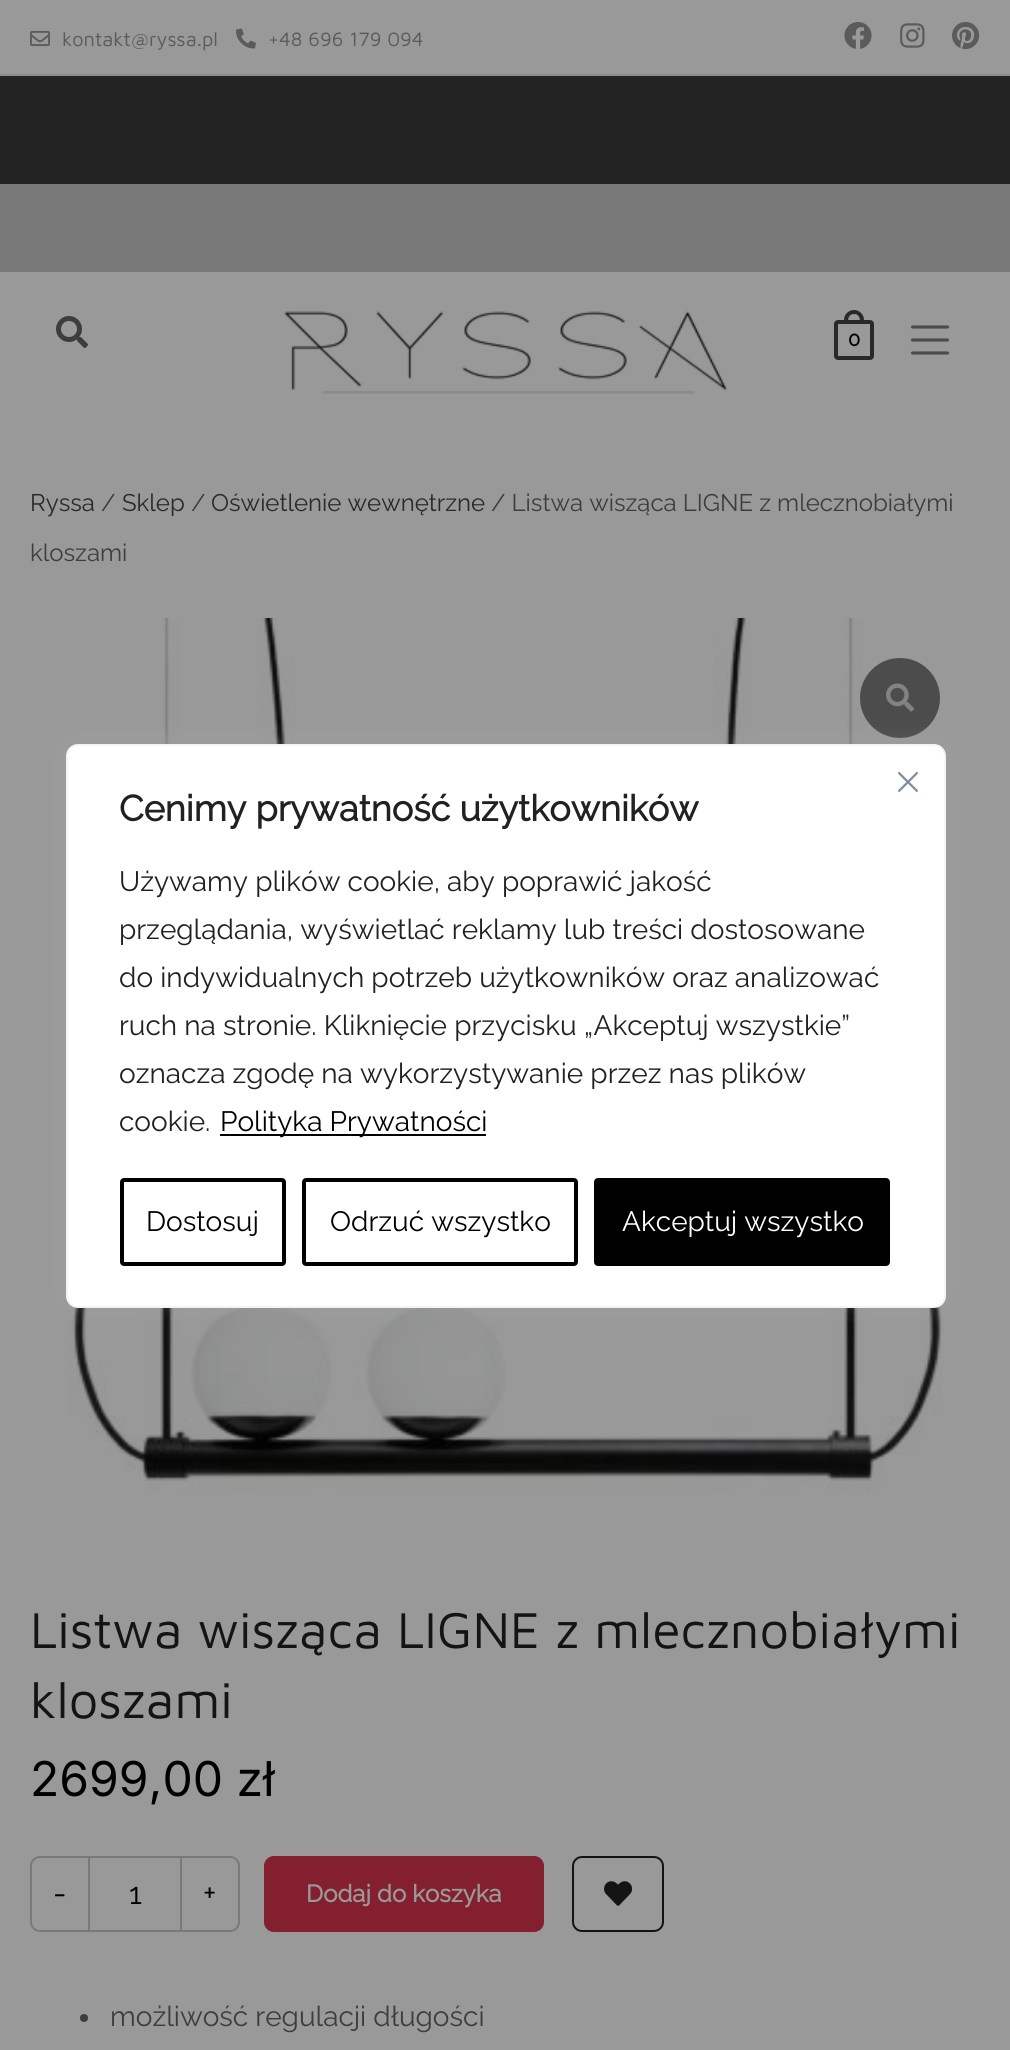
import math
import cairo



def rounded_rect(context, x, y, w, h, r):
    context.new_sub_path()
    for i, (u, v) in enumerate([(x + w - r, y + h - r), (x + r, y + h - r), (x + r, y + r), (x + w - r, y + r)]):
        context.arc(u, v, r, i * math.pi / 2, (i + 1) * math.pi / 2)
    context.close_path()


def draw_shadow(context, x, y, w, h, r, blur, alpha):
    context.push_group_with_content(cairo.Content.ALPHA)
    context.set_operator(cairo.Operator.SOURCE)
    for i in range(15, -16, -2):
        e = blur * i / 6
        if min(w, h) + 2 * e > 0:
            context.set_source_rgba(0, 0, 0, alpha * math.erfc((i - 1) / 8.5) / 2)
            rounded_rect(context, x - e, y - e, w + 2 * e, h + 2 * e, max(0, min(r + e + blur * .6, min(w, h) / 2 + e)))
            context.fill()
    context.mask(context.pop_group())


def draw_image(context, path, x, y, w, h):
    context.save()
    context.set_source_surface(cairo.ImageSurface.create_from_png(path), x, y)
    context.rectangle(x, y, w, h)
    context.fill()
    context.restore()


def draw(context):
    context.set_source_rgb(153 / 255, 153 / 255, 153 / 255)
    context.paint()
    context.set_source_rgb(141 / 255, 141 / 255, 141 / 255)
    context.rectangle(0, 74, 1010, 2)
    context.fill()
    draw_image(context, "images/1.png", 30, 31, 20, 15)
    draw_image(context, "images/2.png", 236, 28, 20, 21)
    draw_image(context, "images/3.png", 844, 22, 28, 27)
    draw_image(context, "images/4.png", 900, 23, 25, 25)
    draw_image(context, "images/5.png", 952, 21, 28, 29)
    context.set_source_rgb(35 / 255, 35 / 255, 35 / 255)
    context.rectangle(0, 76, 1010, 108)
    context.fill()
    context.set_source_rgb(121 / 255, 121 / 255, 121 / 255)
    context.rectangle(0, 184, 1010, 88)
    context.fill()
    draw_image(context, "images/6.png", 56, 316, 32, 32)
    draw_image(context, "images/7.png", 284, 311, 444, 83)
    rounded_rect(context, 836, 322, 36, 36, 2)
    context.set_source_rgb(41 / 255, 41 / 255, 41 / 255)
    context.set_line_width(4)
    context.stroke()
    context.set_fill_rule(cairo.FillRule.EVEN_ODD)
    context.new_path()
    context.move_to(854, 310)
    context.curve_to(859.5, 310, 864, 314.5, 864, 320)
    context.line_to(864, 322)
    context.line_to(844, 322)
    context.line_to(844, 320)
    context.curve_to(844, 314.5, 848.5, 310, 854, 310)
    context.close_path()
    context.move_to(854, 314)
    context.curve_to(859, 314, 860, 318, 860, 322)
    context.line_to(848, 322)
    context.curve_to(848, 318, 849, 314, 854, 314)
    context.close_path()
    context.fill()
    context.new_path()
    context.move_to(912.5, 327)
    context.line_to(947.5, 327)
    context.move_to(912.5, 340)
    context.line_to(947.5, 340)
    context.move_to(912.5, 353)
    context.line_to(947.5, 353)
    context.set_source_rgb(77 / 255, 77 / 255, 77 / 255)
    context.set_line_width(3.2)
    context.set_line_cap(cairo.LineCap.ROUND)
    context.stroke()
    draw_image(context, "images/8.png", 30, 618, 950, 950)
    context.set_source_rgb(76 / 255, 76 / 255, 76 / 255)
    context.arc(900, 698, 40, 0, 2 * math.pi)
    context.fill()
    draw_image(context, "images/9.png", 886, 683, 28, 29)
    context.new_path()
    context.move_to(40, 1857)
    context.line_to(89, 1857)
    context.line_to(89, 1931)
    context.line_to(40, 1931)
    context.curve_to(35, 1931, 31, 1927, 31, 1922)
    context.line_to(31, 1866)
    context.curve_to(31, 1861, 35, 1857, 40, 1857)
    context.close_path()
    context.set_source_rgb(121 / 255, 121 / 255, 121 / 255)
    context.set_line_width(2)
    context.set_line_cap(cairo.LineCap.BUTT)
    context.stroke()
    context.rectangle(90, 1856, 90, 2)
    context.fill()
    context.rectangle(90, 1930, 90, 2)
    context.fill()
    context.new_path()
    context.move_to(181, 1857)
    context.line_to(230, 1857)
    context.curve_to(235, 1857, 239, 1861, 239, 1866)
    context.line_to(239, 1922)
    context.curve_to(239, 1927, 235, 1931, 230, 1931)
    context.line_to(181, 1931)
    context.close_path()
    context.stroke()
    context.set_source_rgb(131 / 255, 31 / 255, 47 / 255)
    rounded_rect(context, 265, 1857, 278, 74, 9)
    context.fill_preserve()
    context.stroke()
    rounded_rect(context, 573, 1857, 90, 74, 9)
    context.set_source_rgb(20 / 255, 20 / 255, 20 / 255)
    context.stroke()
    draw_image(context, "images/10.png", 604, 1881, 29, 25)
    context.set_source_rgb(61 / 255, 61 / 255, 61 / 255)
    context.arc(84, 2018, 4, 0, 2 * math.pi)
    context.fill()
    context.set_source_rgb(172 / 255, 171 / 255, 171 / 255)
    draw_shadow(context, 66, 742, 880, 564, 12, 10, 0.3)
    context.set_source_rgb(1, 1, 1)
    rounded_rect(context, 67, 745, 878, 562, 11)
    context.fill_preserve()
    context.set_source_rgb(244 / 255, 244 / 255, 244 / 255)
    context.stroke()
    draw_image(context, "images/11.png", 898, 772, 20, 20)
    context.set_source_rgb(0, 0, 0)
    context.rectangle(220, 1134, 266, 2)
    context.fill()
    rounded_rect(context, 122, 1180, 162, 84, 2)
    context.set_line_width(4)
    context.stroke()
    rounded_rect(context, 304, 1180, 272, 84, 2)
    context.stroke()
    rounded_rect(context, 596, 1180, 292, 84, 2)
    context.fill_preserve()
    context.stroke()
    context.select_font_face("Maven Pro")
    context.set_font_size(20)
    context.set_source_rgb(91 / 255, 91 / 255, 91 / 255)
    context.move_to(62, 46)
    context.show_text("kontakt@ryssa.pl")
    context.move_to(268, 46)
    context.show_text("+48 696 179 094")
    context.select_font_face("Raleway", cairo.FontSlant.NORMAL, cairo.FontWeight.BOLD)
    context.set_source_rgb(0, 0, 0)
    context.move_to(848, 346)
    context.show_text("0")
    context.select_font_face("Raleway Thin")
    context.set_font_size(24)
    context.set_source_rgb(41 / 255, 41 / 255, 41 / 255)
    context.move_to(30, 511)
    context.show_text("Ryssa")
    context.set_source_rgb(61 / 255, 61 / 255, 61 / 255)
    context.move_to(101, 511)
    context.show_text("/")
    context.set_source_rgb(41 / 255, 41 / 255, 41 / 255)
    context.move_to(122, 511)
    context.show_text("Sklep")
    context.set_source_rgb(61 / 255, 61 / 255, 61 / 255)
    context.move_to(191, 511)
    context.show_text("/")
    context.set_source_rgb(41 / 255, 41 / 255, 41 / 255)
    context.move_to(211, 511)
    context.show_text("Oświetlenie wewnętrzne")
    context.set_source_rgb(61 / 255, 61 / 255, 61 / 255)
    context.move_to(491, 511)
    context.show_text("/ Listwa wisząca LIGNE z mlecznobiałymi")
    context.move_to(30, 561)
    context.show_text("kloszami")
    context.select_font_face("Maven Pro")
    context.set_font_size(52)
    context.set_source_rgb(20 / 255, 20 / 255, 20 / 255)
    context.move_to(30, 1648)
    context.show_text("Listwa wisząca LIGNE z mlecznobiałymi")
    context.move_to(30, 1718)
    context.show_text("kloszami")
    context.select_font_face("Inter")
    context.set_font_size(48)
    context.set_source_rgb(0, 0, 0)
    context.move_to(30, 1796)
    context.show_text("2699,00 zł")
    context.select_font_face("Raleway Thin")
    context.set_font_size(32)
    context.move_to(53, 1904)
    context.show_text("-")
    context.set_font_size(30)
    context.move_to(129, 1904)
    context.show_text("1")
    context.set_font_size(32)
    context.move_to(203, 1904)
    context.show_text("+")
    context.select_font_face("Raleway", cairo.FontSlant.NORMAL, cairo.FontWeight.BOLD)
    context.set_font_size(24)
    context.set_source_rgb(153 / 255, 153 / 255, 153 / 255)
    context.move_to(306, 1902)
    context.show_text("Dodaj do koszyka")
    context.select_font_face("Raleway Thin")
    context.set_font_size(28)
    context.set_source_rgb(61 / 255, 61 / 255, 61 / 255)
    context.move_to(110, 2026)
    context.show_text("możliwość regulacji długości")
    context.select_font_face("Raleway", cairo.FontSlant.NORMAL, cairo.FontWeight.BOLD)
    context.set_font_size(36)
    context.set_source_rgb(33 / 255, 33 / 255, 33 / 255)
    context.move_to(119, 821)
    context.show_text("Cenimy prywatność użytkowników")
    context.select_font_face("Raleway Thin")
    context.set_font_size(28)
    context.move_to(119, 891)
    context.show_text("Używamy plików cookie, aby poprawić jakość")
    context.move_to(119, 939)
    context.show_text("przeglądania, wyświetlać reklamy lub treści dostosowane")
    context.move_to(119, 987)
    context.show_text("do indywidualnych potrzeb użytkowników oraz analizować")
    context.move_to(119, 1035)
    context.show_text("ruch na stronie. Kliknięcie przycisku „Akceptuj wszystkie”")
    context.move_to(119, 1083)
    context.show_text("oznacza zgodę na wykorzystywanie przez nas plików")
    context.move_to(119, 1131)
    context.show_text("cookie.")
    context.set_source_rgb(0, 0, 0)
    context.move_to(220, 1131)
    context.show_text("Polityka Prywatności")
    context.move_to(146, 1231)
    context.show_text("Dostosuj")
    context.move_to(330, 1231)
    context.show_text("Odrzuć wszystko")
    context.set_source_rgb(1, 1, 1)
    context.move_to(622, 1231)
    context.show_text("Akceptuj wszystko")


surface = cairo.ImageSurface(cairo.Format.RGB24, 1010, 2050)
context = cairo.Context(surface)
options = cairo.FontOptions()
options.set_hint_metrics(cairo.HintMetrics.OFF)
options.set_hint_style(cairo.HintStyle.NONE)
context.set_font_options(options)
context.set_miter_limit(4)
draw(context)
surface.write_to_png("out.png")
